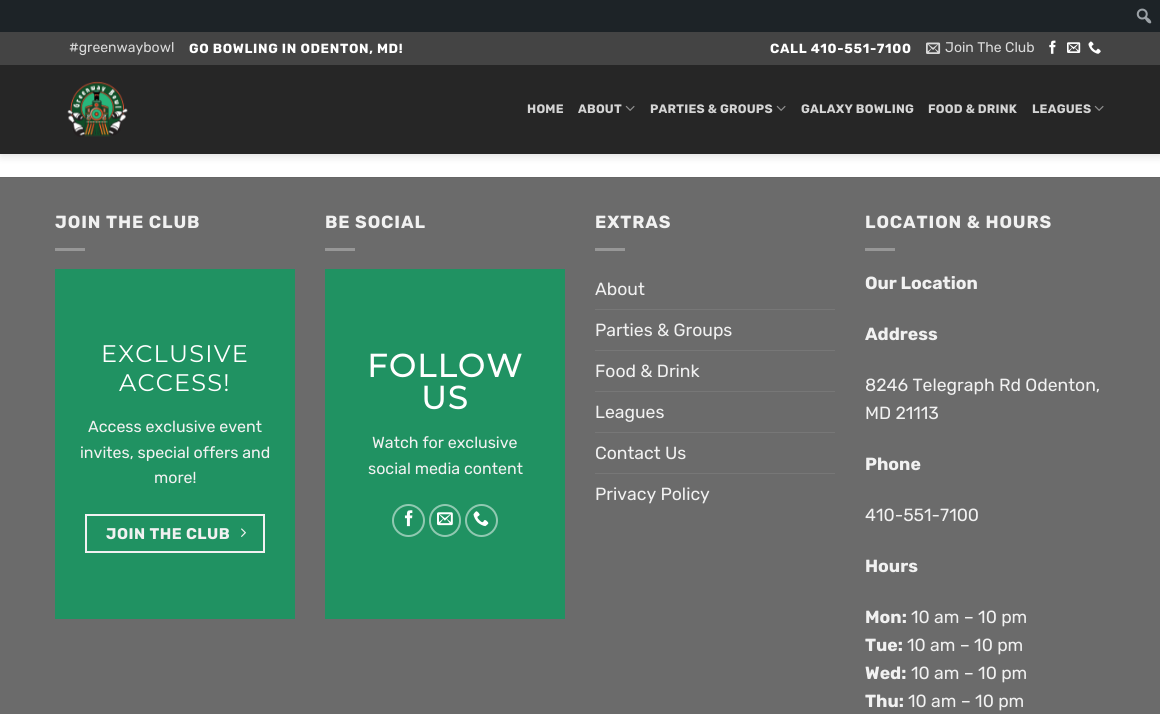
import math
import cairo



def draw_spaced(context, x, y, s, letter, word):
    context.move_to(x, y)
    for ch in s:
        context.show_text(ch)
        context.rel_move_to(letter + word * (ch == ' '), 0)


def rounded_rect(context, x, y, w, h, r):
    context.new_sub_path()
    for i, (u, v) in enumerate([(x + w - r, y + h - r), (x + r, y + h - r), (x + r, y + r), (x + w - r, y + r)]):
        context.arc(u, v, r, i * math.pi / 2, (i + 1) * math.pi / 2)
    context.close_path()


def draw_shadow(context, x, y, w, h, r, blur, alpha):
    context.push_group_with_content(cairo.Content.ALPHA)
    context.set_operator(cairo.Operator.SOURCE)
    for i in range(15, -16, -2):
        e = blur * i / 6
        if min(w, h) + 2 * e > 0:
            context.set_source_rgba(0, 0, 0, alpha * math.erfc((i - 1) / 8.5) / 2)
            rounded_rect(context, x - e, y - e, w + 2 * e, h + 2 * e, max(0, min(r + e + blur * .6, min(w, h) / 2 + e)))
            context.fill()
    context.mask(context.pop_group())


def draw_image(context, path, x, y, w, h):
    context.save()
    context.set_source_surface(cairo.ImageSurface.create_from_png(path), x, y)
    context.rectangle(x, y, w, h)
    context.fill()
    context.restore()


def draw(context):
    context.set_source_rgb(1, 1, 1)
    context.paint()
    context.set_source_rgb(0, 0, 0)
    draw_shadow(context, 1, 33, 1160, 122, 0, 5, 0.15)
    context.set_source_rgb(29 / 255, 35 / 255, 39 / 255)
    context.rectangle(0, 0, 1160, 32)
    context.fill()
    draw_image(context, "images/1.png", 1136, 8, 16, 16)
    context.set_source_rgb(68 / 255, 68 / 255, 68 / 255)
    context.rectangle(0, 32, 1160, 33)
    context.fill()
    draw_image(context, "images/2.png", 926, 42, 15, 12)
    draw_image(context, "images/3.png", 1049, 40, 7, 14)
    draw_image(context, "images/4.png", 1067, 42, 14, 11)
    draw_image(context, "images/5.png", 1088, 41, 13, 13)
    context.set_source_rgb(38 / 255, 38 / 255, 38 / 255)
    context.rectangle(0, 65, 1160, 89)
    context.fill()
    draw_image(context, "images/6.png", 67, 81, 61, 56)
    draw_image(context, "images/7.png", 625, 105, 10, 6)
    draw_image(context, "images/7.png", 776, 105, 10, 6)
    draw_image(context, "images/7.png", 1094, 105, 10, 6)
    context.set_source_rgb(107 / 255, 107 / 255, 107 / 255)
    context.rectangle(0, 178, 1160, 536)
    context.fill()
    context.set_source_rgb(102 / 255, 102 / 255, 102 / 255)
    context.rectangle(0, 177, 1160, 1)
    context.fill()
    context.set_source_rgb(151 / 255, 151 / 255, 151 / 255)
    context.rectangle(55, 248, 30, 3)
    context.fill()
    context.set_source_rgb(32 / 255, 146 / 255, 98 / 255)
    context.rectangle(55, 269, 240, 350)
    context.fill()
    context.rectangle(86, 515, 178, 37)
    context.set_source_rgb(241 / 255, 241 / 255, 241 / 255)
    context.stroke()
    draw_image(context, "images/8.png", 241, 528, 5, 9)
    context.set_source_rgb(151 / 255, 151 / 255, 151 / 255)
    context.rectangle(325, 248, 30, 3)
    context.fill()
    context.set_source_rgb(32 / 255, 146 / 255, 98 / 255)
    context.rectangle(325, 269, 240, 350)
    context.fill()
    context.arc(408.5, 520.5, 15.5, 0, 2 * math.pi)
    context.set_source_rgb(144 / 255, 201 / 255, 177 / 255)
    context.stroke()
    draw_image(context, "images/9.png", 404, 510, 9, 17)
    rounded_rect(context, 430, 505, 30, 31, 15)
    context.stroke()
    draw_image(context, "images/10.png", 437, 512, 16, 14)
    context.arc(481.5, 520.5, 15.5, 0, 2 * math.pi)
    context.stroke()
    draw_image(context, "images/11.png", 473, 511, 16, 16)
    context.set_source_rgb(151 / 255, 151 / 255, 151 / 255)
    context.rectangle(595, 248, 30, 3)
    context.fill()
    context.set_source_rgb(119 / 255, 119 / 255, 119 / 255)
    context.rectangle(595, 309, 240, 1)
    context.fill()
    context.rectangle(595, 350, 240, 1)
    context.fill()
    context.rectangle(595, 391, 240, 1)
    context.fill()
    context.rectangle(595, 432, 240, 1)
    context.fill()
    context.rectangle(595, 473, 240, 1)
    context.fill()
    context.set_source_rgb(151 / 255, 151 / 255, 151 / 255)
    context.rectangle(865, 248, 30, 3)
    context.fill()
    context.select_font_face("Rubik")
    context.set_font_size(14)
    context.set_source_rgb(218 / 255, 218 / 255, 218 / 255)
    context.move_to(69, 52)
    context.show_text("#greenwaybowl")
    context.select_font_face("Rubik", cairo.FontSlant.NORMAL, cairo.FontWeight.BOLD)
    context.set_font_size(13.25)
    context.set_source_rgb(1, 1, 1)
    draw_spaced(context, 189, 53, "GO BOWLING IN ODENTON, MD!", 0.65, 0)
    draw_spaced(context, 770, 53, "CALL 410-551-7100", 0.65, 0)
    context.select_font_face("Rubik")
    context.set_font_size(14)
    context.set_source_rgb(218 / 255, 218 / 255, 218 / 255)
    context.move_to(945, 52)
    context.show_text("Join The Club")
    context.select_font_face("Rubik", cairo.FontSlant.NORMAL, cairo.FontWeight.BOLD)
    context.set_font_size(12.25)
    context.set_source_rgb(212 / 255, 212 / 255, 212 / 255)
    draw_spaced(context, 527, 113, "HOME", 0.25, 0)
    draw_spaced(context, 578, 113, "ABOUT", 0.25, 0)
    draw_spaced(context, 650, 113, "PARTIES & GROUPS", 0.25, 0)
    draw_spaced(context, 801, 113, "GALAXY BOWLING", 0.25, 0)
    draw_spaced(context, 928, 113, "FOOD & DRINK", 0.25, 0)
    draw_spaced(context, 1032, 113, "LEAGUES", 0.25, 0)
    context.set_font_size(17.6)
    context.set_source_rgb(241 / 255, 241 / 255, 241 / 255)
    draw_spaced(context, 55, 228, "JOIN THE CLUB", 0.9, 0)
    context.select_font_face("Montserrat Thin")
    context.set_font_size(24)
    context.set_source_rgb(1, 1, 1)
    draw_spaced(context, 101, 362, "EXCLUSIVE", 1.25, 0)
    draw_spaced(context, 119, 391, "ACCESS!", 1.25, 0)
    context.select_font_face("Rubik")
    context.set_font_size(16)
    context.set_source_rgb(241 / 255, 241 / 255, 241 / 255)
    context.move_to(88, 432)
    context.show_text("Access exclusive event")
    context.move_to(80, 458)
    context.show_text("invites, special offers and")
    context.move_to(154, 483)
    context.show_text("more!")
    context.select_font_face("Rubik", cairo.FontSlant.NORMAL, cairo.FontWeight.BOLD)
    context.set_font_size(15.5)
    draw_spaced(context, 106, 539, "JOIN THE CLUB", 0.5, 0)
    context.set_font_size(17.6)
    draw_spaced(context, 325, 228, "BE SOCIAL", 0.9, 0)
    context.select_font_face("Montserrat", cairo.FontSlant.NORMAL, cairo.FontWeight.BOLD)
    context.set_font_size(32)
    context.set_source_rgb(1, 1, 1)
    draw_spaced(context, 367, 377, "FOLLOW", 1.5, 0)
    draw_spaced(context, 421, 409, "US", 1.5, 0)
    context.select_font_face("Rubik")
    context.set_font_size(16)
    context.set_source_rgb(241 / 255, 241 / 255, 241 / 255)
    context.move_to(372, 448)
    context.show_text("Watch for exclusive")
    context.move_to(368, 474)
    context.show_text("social media content")
    context.select_font_face("Rubik", cairo.FontSlant.NORMAL, cairo.FontWeight.BOLD)
    context.set_font_size(17.6)
    draw_spaced(context, 595, 228, "EXTRAS", 0.9, 0)
    context.select_font_face("Rubik")
    context.move_to(595, 295)
    context.show_text("About")
    context.move_to(595, 336)
    context.show_text("Parties & Groups")
    context.move_to(595, 377)
    context.show_text("Food & Drink")
    context.move_to(595, 418)
    context.show_text("Leagues")
    context.move_to(595, 459)
    context.show_text("Contact Us")
    context.move_to(595, 500)
    context.show_text("Privacy Policy")
    context.select_font_face("Rubik", cairo.FontSlant.NORMAL, cairo.FontWeight.BOLD)
    draw_spaced(context, 865, 228, "LOCATION & HOURS", 0.9, 0)
    context.move_to(865, 289)
    context.show_text("Our Location")
    context.move_to(865, 340)
    context.show_text("Address")
    context.select_font_face("Rubik")
    context.move_to(865, 391)
    context.show_text("8246 Telegraph Rd Odenton,")
    context.move_to(865, 419)
    context.show_text("MD 21113")
    context.select_font_face("Rubik", cairo.FontSlant.NORMAL, cairo.FontWeight.BOLD)
    context.move_to(865, 470)
    context.show_text("Phone")
    context.select_font_face("Rubik")
    context.move_to(865, 521)
    context.show_text("410-551-7100")
    context.select_font_face("Rubik", cairo.FontSlant.NORMAL, cairo.FontWeight.BOLD)
    context.move_to(865, 572)
    context.show_text("Hours")
    context.move_to(865, 623)
    context.show_text("Mon:")
    context.select_font_face("Rubik")
    context.move_to(911, 623)
    context.show_text("10 am – 10 pm")
    context.select_font_face("Rubik", cairo.FontSlant.NORMAL, cairo.FontWeight.BOLD)
    context.move_to(865, 651)
    context.show_text("Tue:")
    context.select_font_face("Rubik")
    context.move_to(907, 651)
    context.show_text("10 am – 10 pm")
    context.select_font_face("Rubik", cairo.FontSlant.NORMAL, cairo.FontWeight.BOLD)
    context.move_to(865, 679)
    context.show_text("Wed:")
    context.select_font_face("Rubik")
    context.move_to(911, 679)
    context.show_text("10 am – 10 pm")
    context.select_font_face("Rubik", cairo.FontSlant.NORMAL, cairo.FontWeight.BOLD)
    context.move_to(865, 707)
    context.show_text("Thu:")
    context.select_font_face("Rubik")
    context.move_to(908, 707)
    context.show_text("10 am – 10 pm")


surface = cairo.ImageSurface(cairo.Format.RGB24, 1160, 714)
context = cairo.Context(surface)
options = cairo.FontOptions()
options.set_hint_metrics(cairo.HintMetrics.OFF)
options.set_hint_style(cairo.HintStyle.NONE)
context.set_font_options(options)
context.set_miter_limit(4)
draw(context)
surface.write_to_png("out.png")
